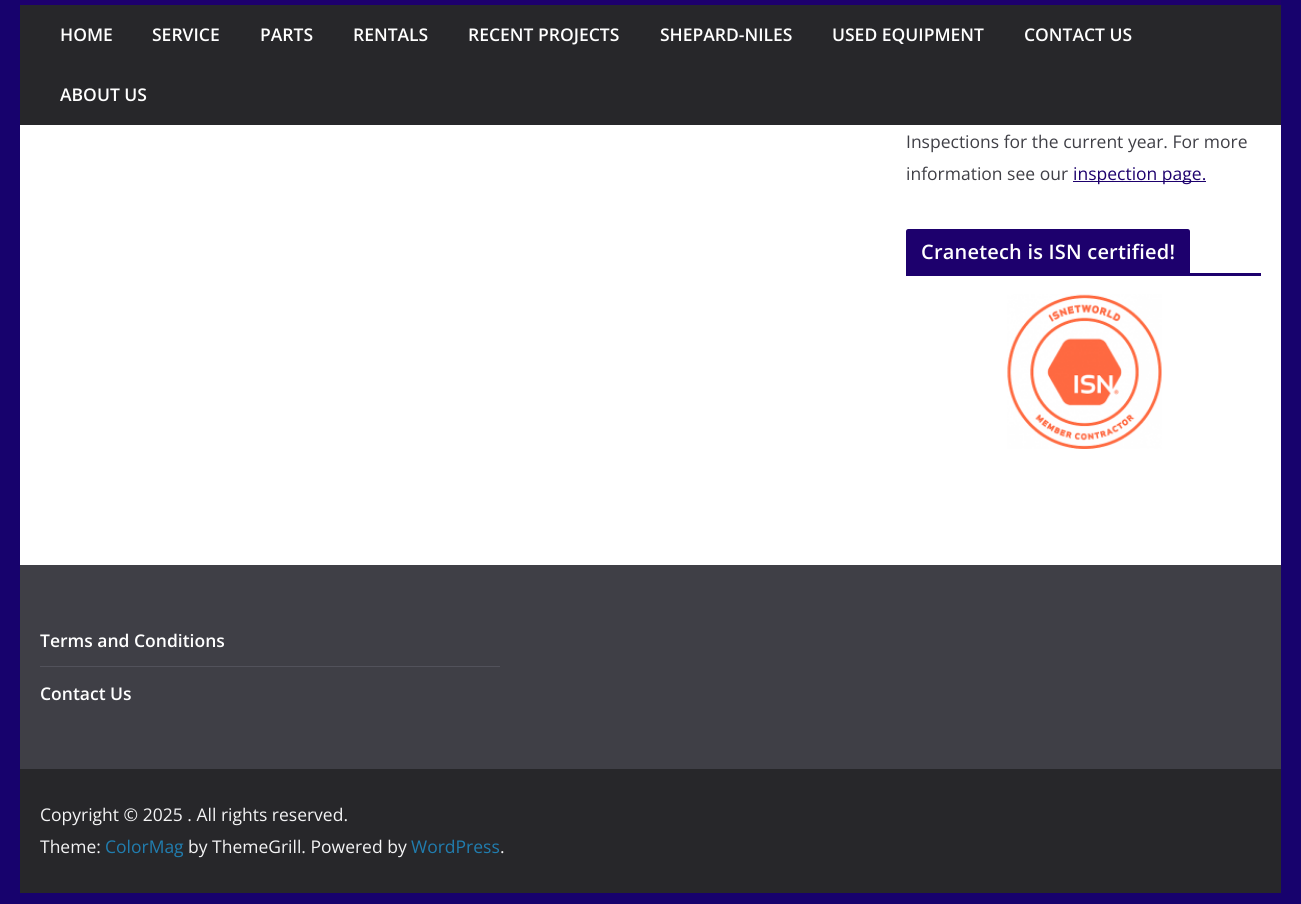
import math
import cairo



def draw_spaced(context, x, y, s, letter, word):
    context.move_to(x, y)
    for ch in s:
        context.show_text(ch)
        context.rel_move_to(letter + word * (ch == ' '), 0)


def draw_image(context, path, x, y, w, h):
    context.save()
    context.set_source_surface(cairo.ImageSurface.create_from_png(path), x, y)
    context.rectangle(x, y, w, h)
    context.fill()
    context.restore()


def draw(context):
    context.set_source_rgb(23 / 255, 2 / 255, 109 / 255)
    context.paint()
    context.set_source_rgb(39 / 255, 39 / 255, 42 / 255)
    context.rectangle(20, 5, 1261, 120)
    context.fill()
    context.set_source_rgb(29 / 255, 0, 109 / 255)
    context.rectangle(20, 0, 1261, 5)
    context.fill()
    context.set_source_rgb(1, 1, 1)
    context.rectangle(20, 125, 1261, 440)
    context.fill()
    context.set_source_rgb(29 / 255, 0, 109 / 255)
    context.rectangle(1073, 181, 133, 1)
    context.fill()
    context.rectangle(906, 273, 355, 3)
    context.fill()
    context.new_path()
    context.move_to(908.5, 229)
    context.line_to(1187.5, 229)
    context.curve_to(1189, 229, 1190, 230, 1190, 231.5)
    context.line_to(1190, 273)
    context.line_to(906, 273)
    context.line_to(906, 231.5)
    context.curve_to(906, 230, 907, 229, 908.5, 229)
    context.close_path()
    context.fill()
    draw_image(context, "images/1.png", 1007, 294, 155, 155)
    context.set_source_rgb(63 / 255, 63 / 255, 70 / 255)
    context.rectangle(20, 565, 1261, 204)
    context.fill()
    context.set_source_rgb(82 / 255, 82 / 255, 91 / 255)
    context.rectangle(40, 666, 460, 1)
    context.fill()
    context.set_source_rgb(39 / 255, 39 / 255, 42 / 255)
    context.rectangle(20, 769, 1261, 124)
    context.fill()
    context.select_font_face("Open Sans SemiBold")
    context.set_font_size(17.5)
    context.set_source_rgb(1, 1, 1)
    context.move_to(60, 41)
    context.show_text("HOME")
    context.move_to(152, 41)
    context.show_text("SERVICE")
    context.move_to(260, 41)
    context.show_text("PARTS")
    context.move_to(353, 41)
    context.show_text("RENTALS")
    context.move_to(468, 41)
    context.show_text("RECENT PROJECTS")
    context.move_to(660, 41)
    context.show_text("SHEPARD-NILES")
    context.move_to(832, 41)
    context.show_text("USED EQUIPMENT")
    context.move_to(1024, 41)
    context.show_text("CONTACT US")
    context.move_to(60, 101)
    context.show_text("ABOUT US")
    context.select_font_face("Open Sans")
    context.set_source_rgb(63 / 255, 63 / 255, 70 / 255)
    context.move_to(906, 148)
    context.show_text("Inspections for the current year. For more")
    context.move_to(906, 180)
    context.show_text("information see our")
    context.set_source_rgb(29 / 255, 0, 109 / 255)
    context.move_to(1073, 180)
    context.show_text("inspection page.")
    context.select_font_face("Open Sans SemiBold")
    context.set_font_size(20)
    context.set_source_rgb(1, 1, 1)
    draw_spaced(context, 921, 259, "Cranetech is ISN certified!", 0.2, 0)
    context.set_font_size(17.5)
    context.move_to(40, 647)
    context.show_text("Terms and Conditions")
    context.move_to(40, 700)
    context.show_text("Contact Us")
    context.select_font_face("Open Sans")
    context.set_source_rgb(244 / 255, 244 / 255, 245 / 255)
    context.move_to(40, 821)
    context.show_text("Copyright © 2025 . All rights reserved.")
    context.move_to(40, 853)
    context.show_text("Theme:")
    context.set_source_rgb(32 / 255, 125 / 255, 175 / 255)
    context.move_to(105, 853)
    context.show_text("ColorMag")
    context.set_source_rgb(244 / 255, 244 / 255, 245 / 255)
    context.move_to(188, 853)
    context.show_text("by ThemeGrill. Powered by")
    context.set_source_rgb(32 / 255, 125 / 255, 175 / 255)
    context.move_to(411, 853)
    context.show_text("WordPress")
    context.set_source_rgb(244 / 255, 244 / 255, 245 / 255)
    context.move_to(500, 853)
    context.show_text(".")


surface = cairo.ImageSurface(cairo.Format.RGB24, 1301, 904)
context = cairo.Context(surface)
options = cairo.FontOptions()
options.set_hint_metrics(cairo.HintMetrics.OFF)
options.set_hint_style(cairo.HintStyle.NONE)
context.set_font_options(options)
context.set_miter_limit(4)
draw(context)
surface.write_to_png("out.png")
